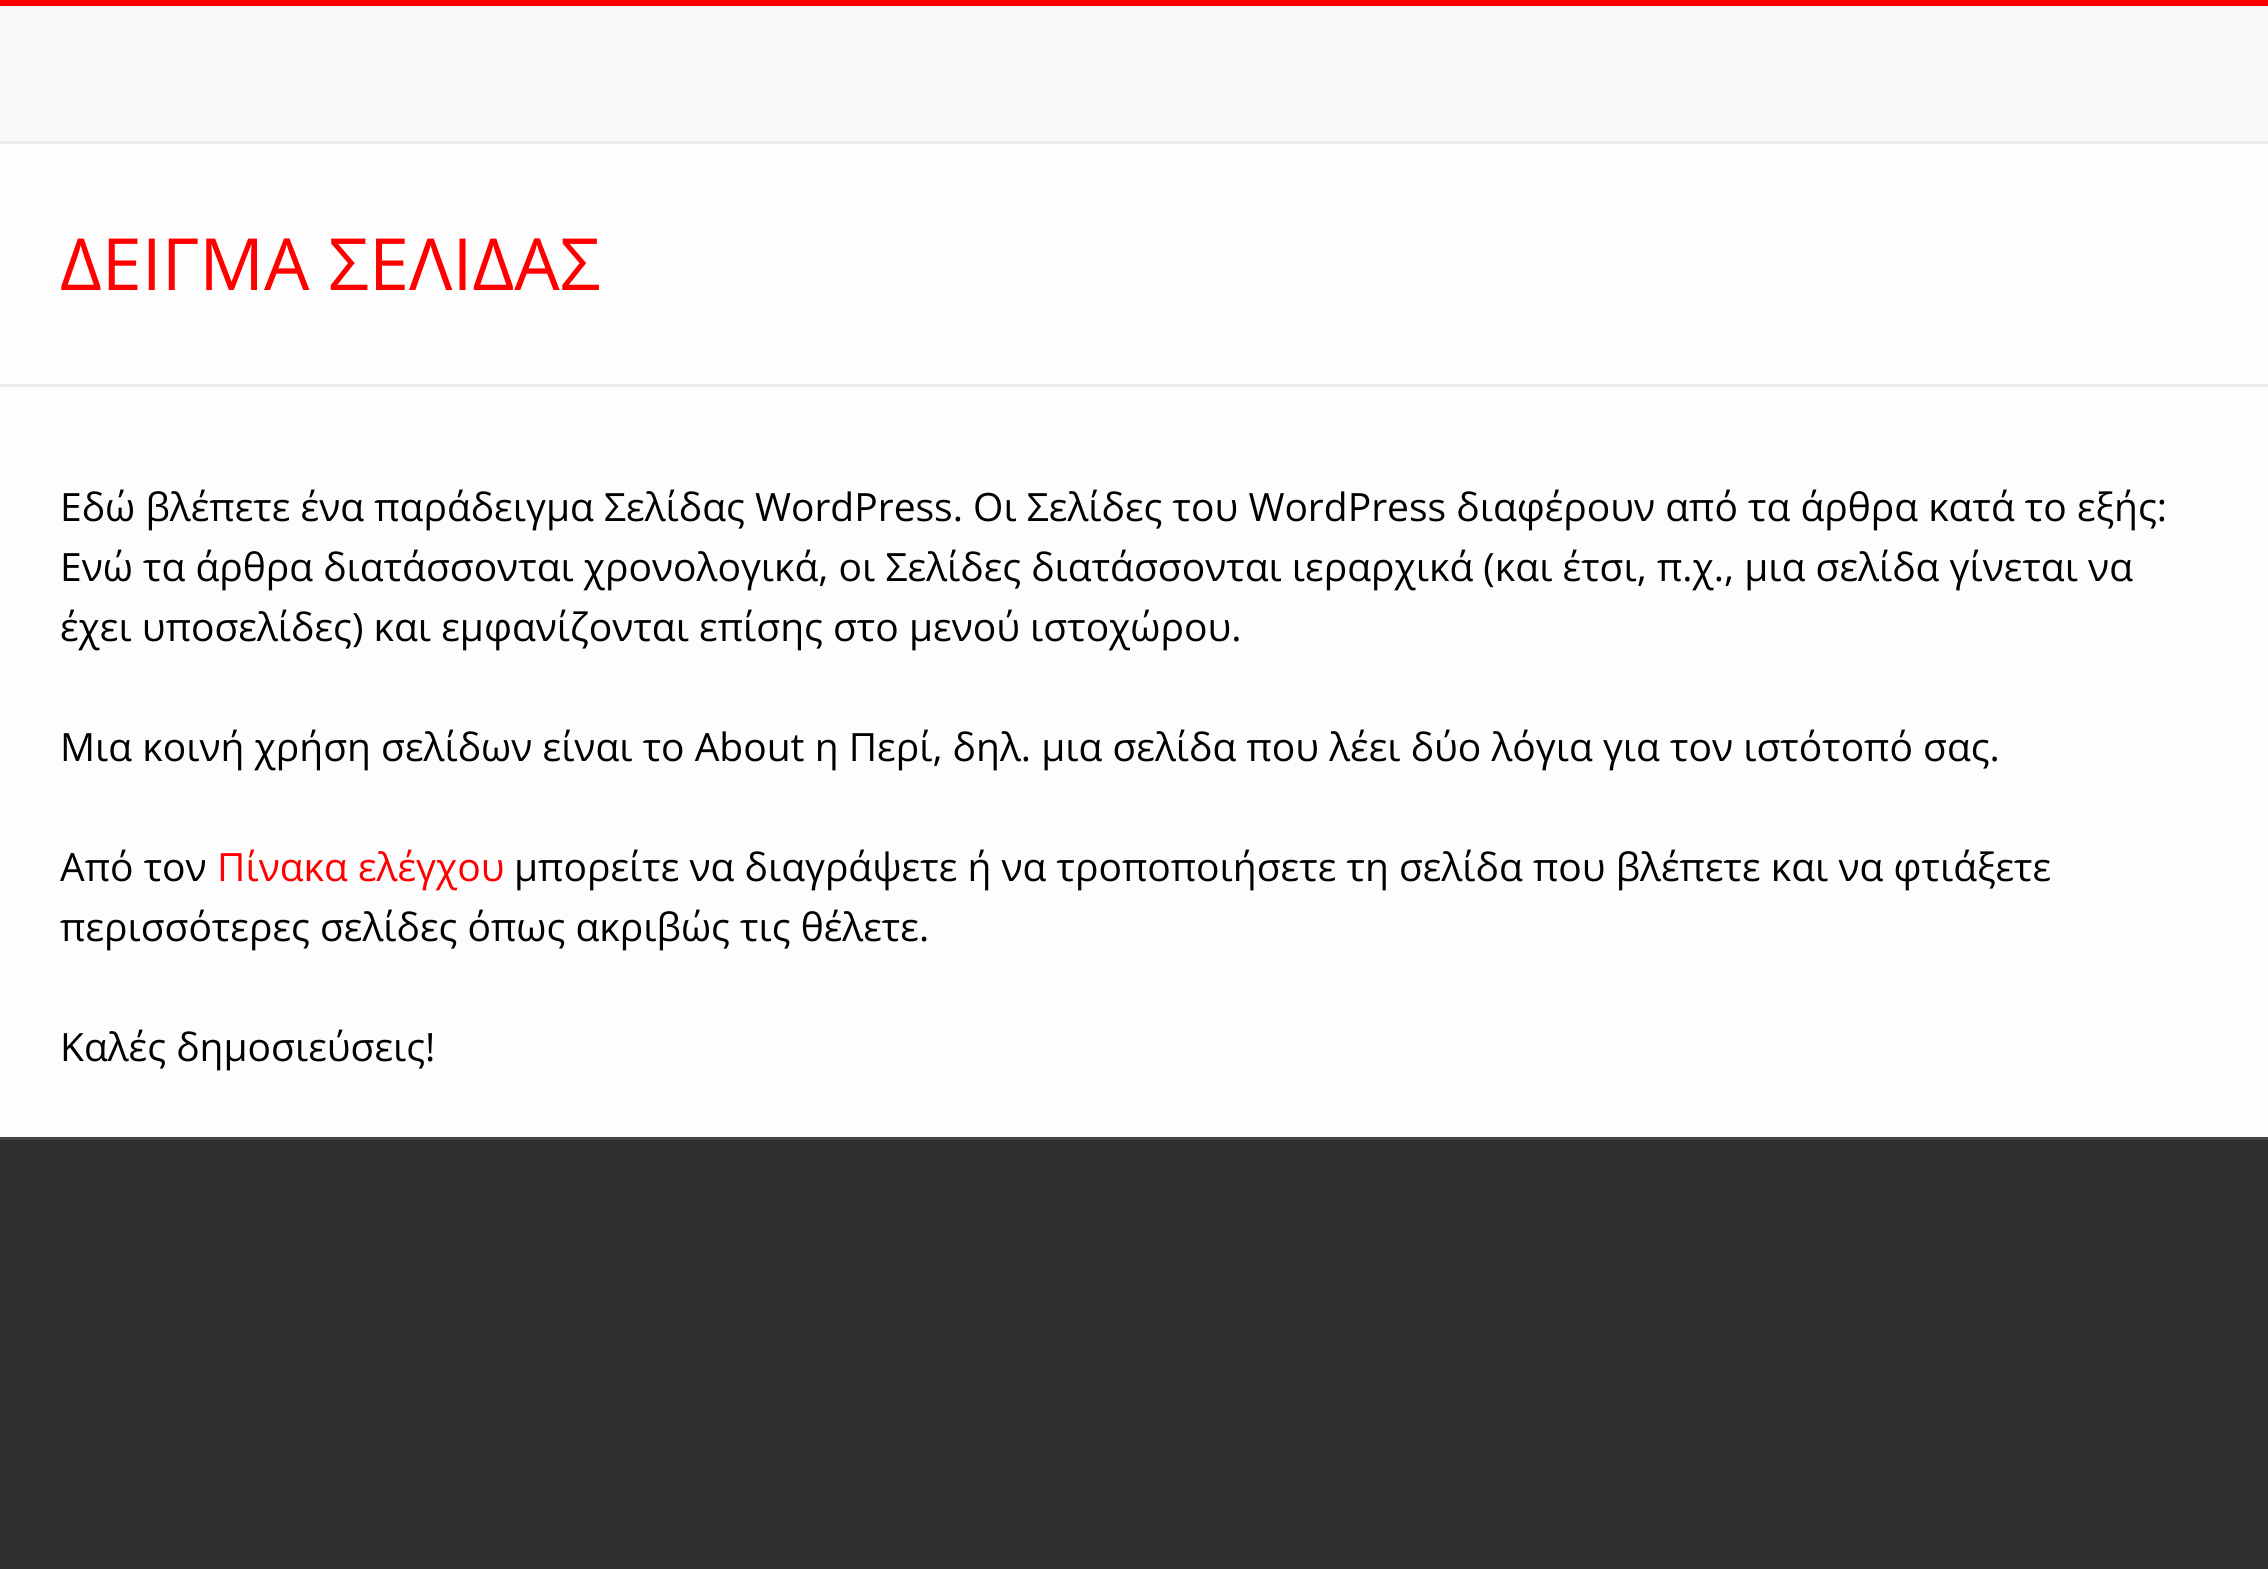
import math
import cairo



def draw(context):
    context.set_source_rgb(253 / 255, 253 / 255, 253 / 255)
    context.paint()
    context.set_source_rgb(1, 0, 0)
    context.rectangle(0, 0, 2268, 6)
    context.fill()
    context.set_source_rgb(249 / 255, 249 / 255, 249 / 255)
    context.rectangle(0, 6, 2268, 135)
    context.fill()
    context.set_source_rgb(237 / 255, 237 / 255, 237 / 255)
    context.rectangle(0, 141, 2268, 3)
    context.fill()
    context.rectangle(0, 384, 2268, 3)
    context.fill()
    context.set_source_rgb(48 / 255, 48 / 255, 48 / 255)
    context.rectangle(0, 1140, 2268, 429)
    context.fill()
    context.set_source_rgb(68 / 255, 68 / 255, 68 / 255)
    context.rectangle(0, 1137, 2268, 3)
    context.fill()
    context.select_font_face("Open Sans")
    context.set_font_size(72)
    context.set_source_rgb(1, 0, 0)
    context.move_to(60, 290)
    context.show_text("ΔΕΙΓΜΑ ΣΕΛΙΔΑΣ")
    context.set_font_size(39)
    context.set_source_rgb(0, 0, 0)
    context.move_to(60, 521)
    context.show_text("Εδώ βλέπετε ένα παράδειγμα Σελίδας WordPress. Οι Σελίδες του WordPress διαφέρουν από τα άρθρα κατά το εξής:")
    context.move_to(60, 581)
    context.show_text("Ενώ τα άρθρα διατάσσονται χρονολογικά, οι Σελίδες διατάσσονται ιεραρχικά (και έτσι, π.χ., μια σελίδα γίνεται να")
    context.move_to(60, 641)
    context.show_text("έχει υποσελίδες) και εμφανίζονται επίσης στο μενού ιστοχώρου.")
    context.move_to(60, 761)
    context.show_text("Μια κοινή χρήση σελίδων είναι το About η Περί, δηλ. μια σελίδα που λέει δύο λόγια για τον ιστότοπό σας.")
    context.move_to(60, 881)
    context.show_text("Από τον")
    context.set_source_rgb(1, 0, 0)
    context.move_to(217, 881)
    context.show_text("Πίνακα ελέγχου")
    context.set_source_rgb(0, 0, 0)
    context.move_to(514, 881)
    context.show_text("μπορείτε να διαγράψετε ή να τροποποιήσετε τη σελίδα που βλέπετε και να φτιάξετε")
    context.move_to(60, 941)
    context.show_text("περισσότερες σελίδες όπως ακριβώς τις θέλετε.")
    context.move_to(60, 1061)
    context.show_text("Καλές δημοσιεύσεις!")


surface = cairo.ImageSurface(cairo.Format.RGB24, 2268, 1569)
context = cairo.Context(surface)
options = cairo.FontOptions()
options.set_hint_metrics(cairo.HintMetrics.OFF)
options.set_hint_style(cairo.HintStyle.NONE)
context.set_font_options(options)
context.set_miter_limit(4)
draw(context)
surface.write_to_png("out.png")
